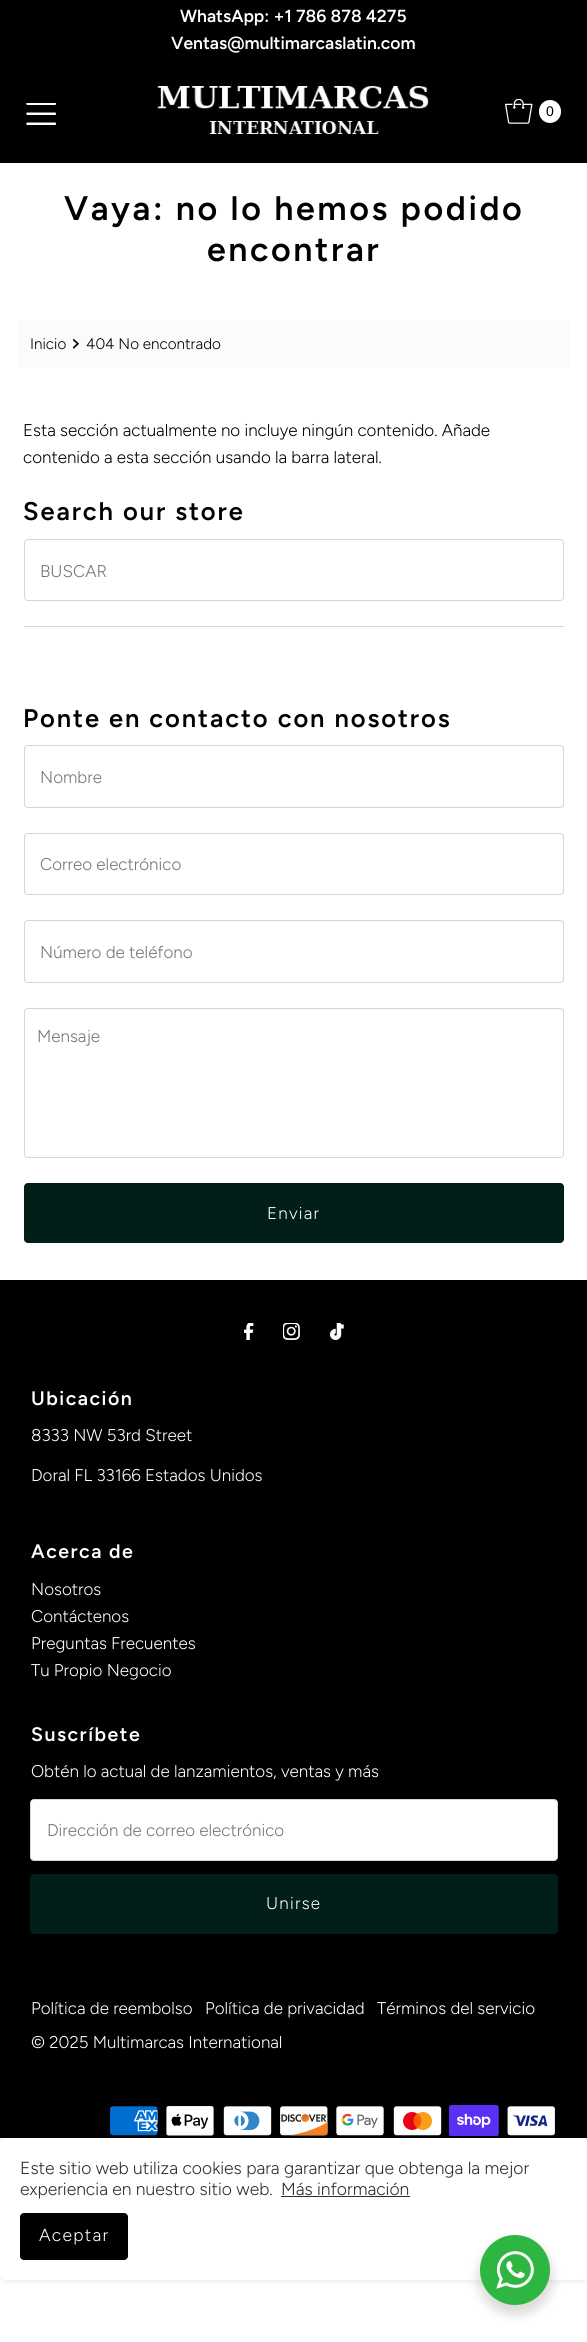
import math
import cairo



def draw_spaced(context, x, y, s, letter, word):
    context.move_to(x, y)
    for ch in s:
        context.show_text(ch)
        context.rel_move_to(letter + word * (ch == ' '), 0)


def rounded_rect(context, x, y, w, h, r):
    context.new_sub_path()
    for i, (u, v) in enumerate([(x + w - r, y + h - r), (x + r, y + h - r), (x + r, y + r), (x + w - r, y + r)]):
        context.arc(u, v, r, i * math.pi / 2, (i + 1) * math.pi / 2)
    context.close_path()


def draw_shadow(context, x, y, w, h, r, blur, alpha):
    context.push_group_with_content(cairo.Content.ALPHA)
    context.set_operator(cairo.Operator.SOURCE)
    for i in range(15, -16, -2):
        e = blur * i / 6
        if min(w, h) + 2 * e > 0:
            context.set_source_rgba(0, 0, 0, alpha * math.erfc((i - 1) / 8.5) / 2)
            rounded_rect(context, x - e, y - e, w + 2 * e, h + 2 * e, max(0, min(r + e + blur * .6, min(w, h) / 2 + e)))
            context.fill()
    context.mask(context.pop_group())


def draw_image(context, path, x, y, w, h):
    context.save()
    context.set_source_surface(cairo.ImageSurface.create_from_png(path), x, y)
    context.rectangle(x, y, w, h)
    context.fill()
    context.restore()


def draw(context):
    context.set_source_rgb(1, 1, 1)
    context.paint()
    context.set_source_rgb(0, 0, 0)
    context.rectangle(0, 0, 587, 163)
    context.fill()
    draw_image(context, "images/1.png", 26, 103, 30, 22)
    draw_image(context, "images/2.png", 155, 81, 274, 54)
    draw_image(context, "images/3.png", 505, 99, 28, 25)
    context.set_source_rgb(1, 1, 1)
    rounded_rect(context, 539, 100, 22, 23, 11)
    context.fill()
    context.set_source_rgb(251 / 255, 251 / 255, 251 / 255)
    context.rectangle(18, 320, 552, 48)
    context.fill()
    draw_image(context, "images/4.png", 73, 339, 6, 10)
    context.set_source_rgb(213 / 255, 213 / 255, 213 / 255)
    context.rectangle(24, 626, 540, 1)
    context.fill()
    rounded_rect(context, 24.5, 539.5, 539, 61, 3.5)
    context.set_line_width(1)
    context.stroke()
    rounded_rect(context, 24.5, 745.5, 539, 62, 3.5)
    context.stroke()
    rounded_rect(context, 24.5, 833.5, 539, 61, 3.5)
    context.stroke()
    rounded_rect(context, 24.5, 920.5, 539, 62, 3.5)
    context.stroke()
    rounded_rect(context, 24.5, 1008.5, 539, 149, 3.5)
    context.stroke()
    context.set_source_rgb(1 / 255, 31 / 255, 24 / 255)
    rounded_rect(context, 24, 1183, 540, 60, 4)
    context.fill()
    context.set_source_rgb(0, 0, 0)
    context.rectangle(0, 1280, 587, 858)
    context.fill()
    draw_image(context, "images/5.png", 244, 1323, 10, 17)
    draw_image(context, "images/6.png", 283, 1323, 17, 17)
    draw_image(context, "images/7.png", 330, 1323, 14, 17)
    context.set_source_rgb(1, 1, 1)
    rounded_rect(context, 30.5, 1799.5, 527, 61, 3.5)
    context.fill_preserve()
    context.set_source_rgb(213 / 255, 213 / 255, 213 / 255)
    context.stroke()
    context.set_source_rgb(1 / 255, 31 / 255, 24 / 255)
    rounded_rect(context, 30, 1874, 528, 60, 4)
    context.fill()
    draw_image(context, "images/8.png", 110, 2106, 48, 30)
    draw_image(context, "images/9.png", 166, 2106, 48, 30)
    draw_image(context, "images/10.png", 223, 2106, 49, 30)
    draw_image(context, "images/11.png", 280, 2106, 48, 30)
    draw_image(context, "images/12.png", 336, 2106, 48, 30)
    draw_image(context, "images/13.png", 393, 2106, 49, 30)
    draw_image(context, "images/14.png", 449, 2105, 50, 31)
    draw_image(context, "images/15.png", 507, 2106, 48, 30)
    context.save()
    context.set_fill_rule(cairo.FillRule.EVEN_ODD)
    context.new_path()
    context.move_to(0, 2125)
    context.line_to(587, 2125)
    context.line_to(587, 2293)
    context.line_to(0, 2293)
    context.close_path()
    context.move_to(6, 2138)
    context.line_to(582, 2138)
    context.curve_to(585.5, 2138, 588, 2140.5, 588, 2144)
    context.line_to(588, 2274)
    context.curve_to(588, 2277.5, 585.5, 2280, 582, 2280)
    context.line_to(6, 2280)
    context.curve_to(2.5, 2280, 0, 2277.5, 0, 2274)
    context.line_to(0, 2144)
    context.curve_to(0, 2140.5, 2.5, 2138, 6, 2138)
    context.close_path()
    context.clip()
    context.set_source_rgb(0, 0, 0)
    draw_shadow(context, 0, 2138, 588, 142, 6, 4, 0.12)
    context.restore()
    context.set_source_rgb(45 / 255, 45 / 255, 45 / 255)
    context.rectangle(281, 2196, 129, 1)
    context.fill()
    context.set_source_rgb(0, 0, 0)
    rounded_rect(context, 20, 2213, 108, 47, 4)
    context.fill()
    context.set_source_rgb(0, 0, 0)
    draw_shadow(context, 478, 2240, 75, 75, 37.5, 5, 0.14)
    context.set_source_rgb(45 / 255, 183 / 255, 66 / 255)
    context.arc(515, 2270, 35, 0, 2 * math.pi)
    context.fill()
    draw_image(context, "images/16.png", 496, 2251, 38, 38)
    context.select_font_face("Figtree SemiBold")
    context.set_font_size(17.5)
    context.set_source_rgb(1, 1, 1)
    context.move_to(180, 22)
    context.show_text("WhatsApp: +1 786 878 4275")
    context.move_to(171, 49)
    context.show_text("Ventas@multimarcaslatin.com")
    context.select_font_face("Liberation Sans")
    context.set_font_size(14)
    context.set_source_rgb(0, 0, 0)
    context.move_to(546, 116)
    context.show_text("0")
    context.select_font_face("Figtree SemiBold")
    context.set_font_size(34)
    draw_spaced(context, 64, 220, "Vaya: no lo hemos podido", 2.55, 0)
    draw_spaced(context, 207, 261, "encontrar", 2.55, 0)
    context.select_font_face("Figtree Light")
    context.set_font_size(15.25)
    context.move_to(30, 349)
    context.show_text("Inicio")
    context.move_to(86, 349)
    context.show_text("404 No encontrado")
    context.set_font_size(17)
    context.move_to(23, 436)
    context.show_text("Esta sección actualmente no incluye ningún contenido. Añade")
    context.move_to(23, 463)
    context.show_text("contenido a esta sección usando la barra lateral.")
    context.select_font_face("Figtree SemiBold")
    context.set_font_size(25.5)
    draw_spaced(context, 23, 520, "Search our store", 1.9, 0)
    context.select_font_face("Figtree Light")
    context.set_font_size(17)
    context.set_source_rgb(117 / 255, 117 / 255, 117 / 255)
    context.move_to(40, 577)
    context.show_text("BUSCAR")
    context.select_font_face("Figtree SemiBold")
    context.set_font_size(25.5)
    context.set_source_rgb(0, 0, 0)
    draw_spaced(context, 23, 727, "Ponte en contacto con nosotros", 1.9, 0)
    context.select_font_face("Figtree Light")
    context.set_font_size(17)
    context.set_source_rgb(117 / 255, 117 / 255, 117 / 255)
    context.move_to(40, 783)
    context.show_text("Nombre")
    context.move_to(40, 870)
    context.show_text("Correo electrónico")
    context.move_to(40, 958)
    context.show_text("Número de teléfono")
    context.move_to(37, 1042)
    context.show_text("Mensaje")
    context.set_source_rgb(1, 1, 1)
    draw_spaced(context, 267, 1219, "Enviar", 1.25, 0)
    context.select_font_face("Figtree SemiBold")
    context.set_font_size(19.5)
    draw_spaced(context, 31, 1405, "Ubicación", 1.5, 0)
    context.select_font_face("Figtree Light")
    context.set_font_size(17)
    context.move_to(31, 1441)
    context.show_text("8333 NW 53rd Street")
    context.move_to(31, 1481)
    context.show_text("Doral FL 33166 Estados Unidos")
    context.select_font_face("Figtree SemiBold")
    context.set_font_size(19.5)
    draw_spaced(context, 31, 1558, "Acerca de", 1.5, 0)
    context.select_font_face("Figtree Light")
    context.set_font_size(17)
    context.move_to(31, 1595)
    context.show_text("Nosotros")
    context.move_to(31, 1622)
    context.show_text("Contáctenos")
    context.move_to(31, 1649)
    context.show_text("Preguntas Frecuentes")
    context.move_to(31, 1676)
    context.show_text("Tu Propio Negocio")
    context.select_font_face("Figtree SemiBold")
    context.set_font_size(19.5)
    draw_spaced(context, 31, 1741, "Suscríbete", 1.5, 0)
    context.select_font_face("Figtree Light")
    context.set_font_size(17)
    context.move_to(31, 1777)
    context.show_text("Obtén lo actual de lanzamientos, ventas y más")
    context.set_source_rgb(117 / 255, 117 / 255, 117 / 255)
    context.move_to(47, 1836)
    context.show_text("Dirección de correo electrónico")
    context.set_source_rgb(1, 1, 1)
    draw_spaced(context, 266, 1909, "Unirse", 1.25, 0)
    context.move_to(31, 2014)
    context.show_text("Política de reembolso")
    context.move_to(205, 2014)
    context.show_text("Política de privacidad")
    context.move_to(377, 2014)
    context.show_text("Términos del servicio")
    context.move_to(31, 2048)
    context.show_text("© 2025 Multimarcas International")
    context.set_font_size(17.5)
    context.set_source_rgb(45 / 255, 45 / 255, 45 / 255)
    context.move_to(20, 2174)
    context.show_text("Este sitio web utiliza cookies para garantizar que obtenga la mejor")
    context.move_to(20, 2195)
    context.show_text("experiencia en nuestro sitio web.")
    context.move_to(281, 2195)
    context.show_text("Más información")
    context.set_source_rgb(1, 1, 1)
    draw_spaced(context, 39, 2241, "Aceptar", 1.25, 0)


surface = cairo.ImageSurface(cairo.Format.RGB24, 587, 2342)
context = cairo.Context(surface)
options = cairo.FontOptions()
options.set_hint_metrics(cairo.HintMetrics.OFF)
options.set_hint_style(cairo.HintStyle.NONE)
context.set_font_options(options)
context.set_miter_limit(4)
draw(context)
surface.write_to_png("out.png")
